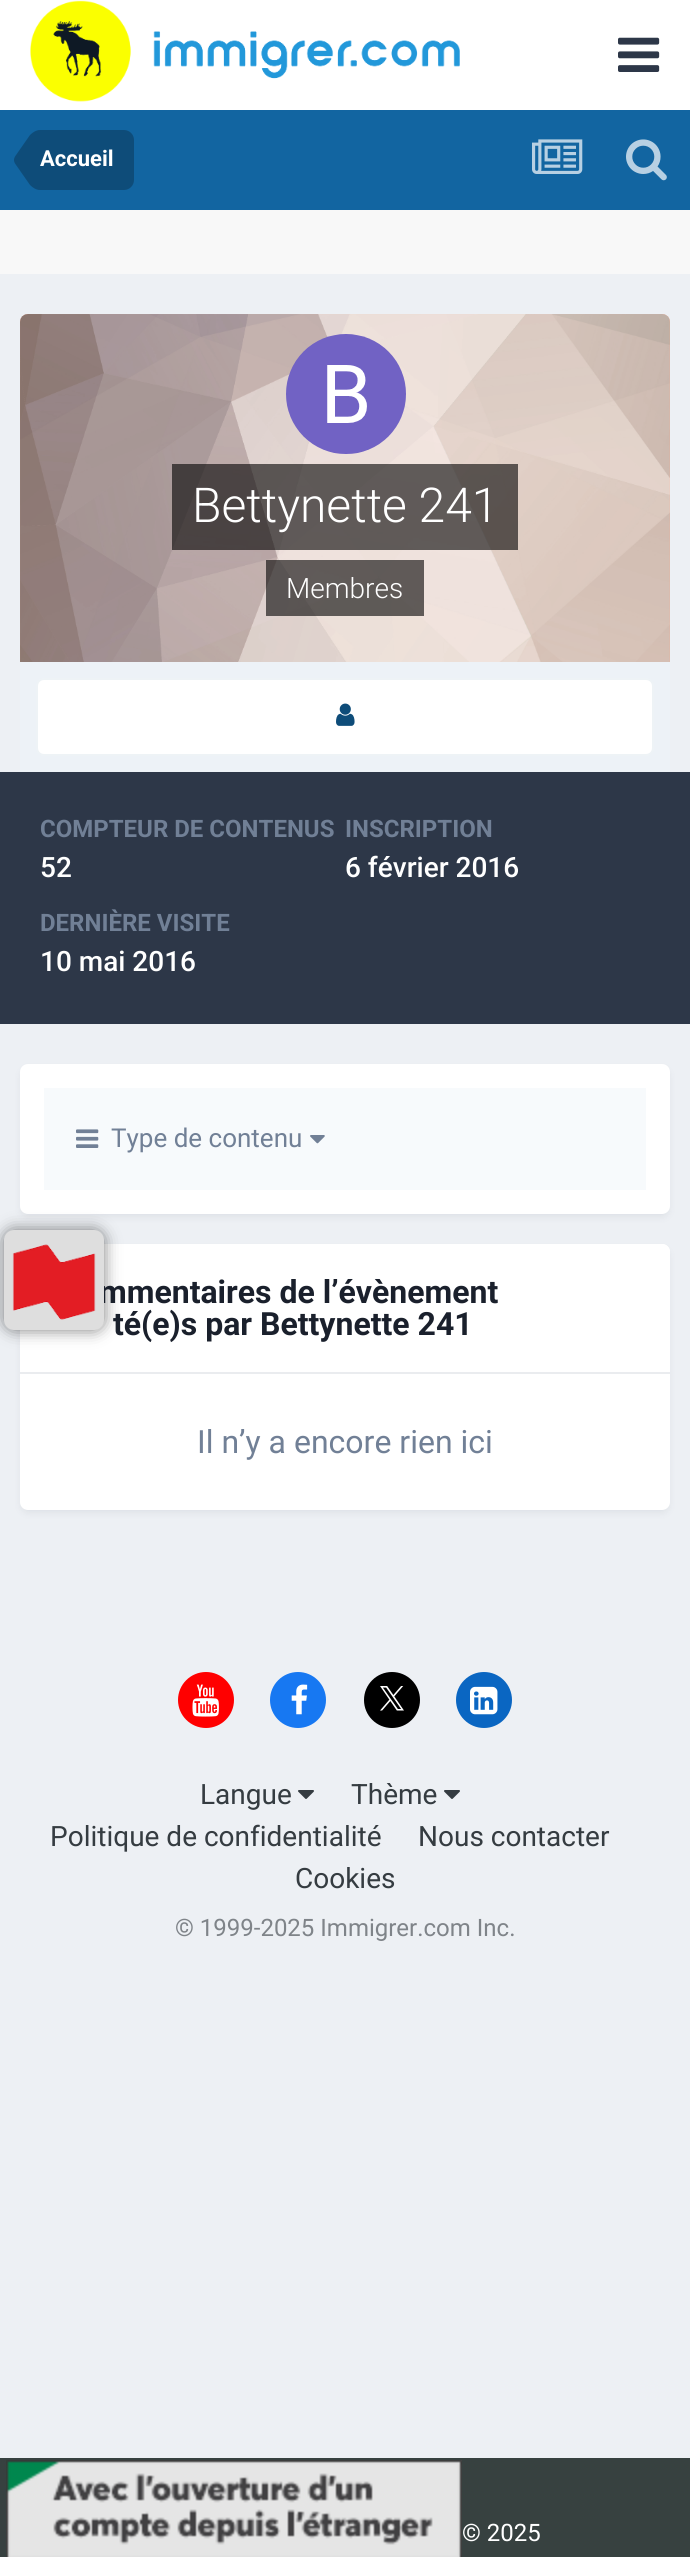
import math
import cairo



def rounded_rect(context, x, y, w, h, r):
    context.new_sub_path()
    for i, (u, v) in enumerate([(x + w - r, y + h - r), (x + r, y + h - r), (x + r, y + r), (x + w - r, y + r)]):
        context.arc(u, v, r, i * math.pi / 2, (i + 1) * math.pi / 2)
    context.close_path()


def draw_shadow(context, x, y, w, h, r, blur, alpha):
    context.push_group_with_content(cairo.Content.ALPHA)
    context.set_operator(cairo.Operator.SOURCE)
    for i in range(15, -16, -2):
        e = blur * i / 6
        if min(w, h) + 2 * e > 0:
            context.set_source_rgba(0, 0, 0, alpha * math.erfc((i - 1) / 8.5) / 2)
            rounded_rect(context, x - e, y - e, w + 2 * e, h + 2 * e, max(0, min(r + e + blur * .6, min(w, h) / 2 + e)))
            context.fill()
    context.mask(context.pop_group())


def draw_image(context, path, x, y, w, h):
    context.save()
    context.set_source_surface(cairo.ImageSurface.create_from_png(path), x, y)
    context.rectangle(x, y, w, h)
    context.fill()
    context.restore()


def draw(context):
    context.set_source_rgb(237 / 255, 240 / 255, 244 / 255)
    context.paint()
    context.set_source_rgb(1, 1, 1)
    context.rectangle(0, 0, 690, 110)
    context.fill()
    draw_image(context, "images/1.png", 30, 0, 430, 102)
    draw_image(context, "images/2.png", 618, 37, 42, 35)
    context.set_source_rgb(18 / 255, 101 / 255, 161 / 255)
    context.rectangle(0, 110, 690, 100)
    context.fill()
    context.set_source_rgb(14 / 255, 76 / 255, 121 / 255)
    context.new_path()
    context.move_to(40, 130)
    context.line_to(124, 130)
    context.curve_to(129.5, 130, 134, 134.5, 134, 140)
    context.line_to(134, 180)
    context.curve_to(134, 185.5, 129.5, 190, 124, 190)
    context.line_to(40, 190)
    context.close_path()
    context.fill()
    context.new_path()
    context.move_to(40, 160)
    context.line_to(40, 190)
    context.curve_to(36.5, 190, 33, 188, 30, 185)
    context.line_to(15, 163.5)
    context.curve_to(14.5, 162.5, 14, 161.5, 14, 160)
    context.close_path()
    context.move_to(40, 160)
    context.line_to(14, 160)
    context.curve_to(14, 158.5, 14.5, 157.5, 15, 156.5)
    context.line_to(30, 135)
    context.curve_to(33, 132, 36.5, 130, 40, 130)
    context.close_path()
    context.fill()
    draw_image(context, "images/3.png", 532, 139, 51, 35)
    draw_image(context, "images/4.png", 626, 139, 41, 42)
    context.set_source_rgb(248 / 255, 248 / 255, 248 / 255)
    context.rectangle(0, 210, 690, 64)
    context.fill()
    context.set_source_rgb(1, 179 / 255, 153 / 255)
    context.new_path()
    context.move_to(28, 314)
    context.line_to(662, 314)
    context.curve_to(666.5, 314, 670, 317.5, 670, 322)
    context.line_to(670, 662)
    context.line_to(20, 662)
    context.line_to(20, 322)
    context.curve_to(20, 317.5, 23.5, 314, 28, 314)
    context.close_path()
    context.fill()
    draw_image(context, "images/5.png", 20, 314, 650, 348)
    draw_image(context, "images/6.png", 286, 334, 120, 120)
    context.set_source_rgba(0, 0, 0, 0.6)
    context.rectangle(172, 464, 346, 86)
    context.fill()
    context.rectangle(266, 560, 158, 56)
    context.fill()
    context.set_source_rgb(237 / 255, 242 / 255, 247 / 255)
    context.rectangle(20, 662, 650, 110)
    context.fill()
    context.set_source_rgb(1, 1, 1)
    rounded_rect(context, 36, 678, 618, 78, 8)
    context.fill()
    rounded_rect(context, 37, 679, 616, 76, 7)
    context.set_source_rgba(14 / 255, 76 / 255, 121 / 255, 0.07)
    context.stroke()
    draw_image(context, "images/7.png", 336, 703, 19, 23)
    context.set_source_rgb(45 / 255, 55 / 255, 72 / 255)
    context.rectangle(0, 772, 690, 252)
    context.fill()
    context.set_source_rgb(45 / 255, 55 / 255, 72 / 255)
    draw_shadow(context, 22, 1070, 646, 146, 6, 4, 0.1)
    context.set_source_rgb(1, 1, 1)
    rounded_rect(context, 20, 1064, 650, 150, 8)
    context.fill()
    context.set_source_rgb(247 / 255, 250 / 255, 252 / 255)
    context.rectangle(44, 1088, 602, 102)
    context.fill()
    draw_image(context, "images/8.png", 76, 1129, 23, 19)
    draw_image(context, "images/9.png", 310, 1135, 15, 9)
    context.set_source_rgb(45 / 255, 55 / 255, 72 / 255)
    draw_shadow(context, 22, 1250, 646, 262, 6, 4, 0.1)
    context.set_source_rgb(1, 1, 1)
    rounded_rect(context, 20, 1244, 650, 266, 8)
    context.fill()
    context.new_path()
    context.move_to(28, 1244)
    context.line_to(662, 1244)
    context.curve_to(666.5, 1244, 670, 1247.5, 670, 1252)
    context.line_to(670, 1374)
    context.line_to(20, 1374)
    context.line_to(20, 1252)
    context.curve_to(20, 1247.5, 23.5, 1244, 28, 1244)
    context.close_path()
    context.fill()
    context.set_source_rgb(234 / 255, 236 / 255, 239 / 255)
    context.rectangle(20, 1372, 650, 2)
    context.fill()
    context.set_source_rgb(0, 0, 0)
    draw_shadow(context, 4, 1230, 100, 100, 10, 8, 0.5)
    context.set_source_rgb(1, 0, 0)
    context.arc(206, 1700, 28, 0, 2 * math.pi)
    context.fill()
    draw_image(context, "images/11.png", 192, 1684, 27, 33)
    context.set_source_rgb(23 / 255, 120 / 255, 242 / 255)
    context.arc(298, 1700, 28, 0, 2 * math.pi)
    context.fill()
    draw_image(context, "images/12.png", 291, 1684, 17, 31)
    context.set_source_rgb(0, 0, 0)
    context.arc(392, 1700, 28, 0, 2 * math.pi)
    context.fill()
    draw_image(context, "images/13.png", 380, 1686, 24, 25)
    context.set_source_rgb(10 / 255, 102 / 255, 194 / 255)
    context.arc(484, 1700, 28, 0, 2 * math.pi)
    context.fill()
    draw_image(context, "images/14.png", 470, 1686, 28, 29)
    draw_image(context, "images/15.png", 298, 1790, 16, 9)
    draw_image(context, "images/15.png", 444, 1790, 16, 9)
    context.set_source_rgb(55 / 255, 65 / 255, 64 / 255)
    context.rectangle(0, 2458, 690, 99)
    context.fill()
    draw_image(context, "images/16.png", 6, 2460, 456, 97)
    context.select_font_face("Roboto", cairo.FontSlant.NORMAL, cairo.FontWeight.BOLD)
    context.set_font_size(22)
    context.set_source_rgb(1, 1, 1)
    context.move_to(40, 166)
    context.show_text("Accueil")
    context.select_font_face("Roboto Light")
    context.set_font_size(48)
    context.move_to(192, 522)
    context.show_text("Bettynette 241")
    context.set_font_size(28)
    context.move_to(286, 598)
    context.show_text("Membres")
    context.select_font_face("Roboto", cairo.FontSlant.NORMAL, cairo.FontWeight.BOLD)
    context.set_font_size(24)
    context.set_source_rgb(113 / 255, 128 / 255, 150 / 255)
    context.move_to(40, 837)
    context.show_text("COMPTEUR DE CONTENUS")
    context.select_font_face("Roboto Medium")
    context.set_font_size(28)
    context.set_source_rgb(1, 1, 1)
    context.move_to(40, 877)
    context.show_text("52")
    context.select_font_face("Roboto", cairo.FontSlant.NORMAL, cairo.FontWeight.BOLD)
    context.set_font_size(24)
    context.set_source_rgb(113 / 255, 128 / 255, 150 / 255)
    context.move_to(345, 837)
    context.show_text("INSCRIPTION")
    context.select_font_face("Roboto Medium")
    context.set_font_size(28)
    context.set_source_rgb(1, 1, 1)
    context.move_to(345, 877)
    context.show_text("6 février 2016")
    context.select_font_face("Roboto", cairo.FontSlant.NORMAL, cairo.FontWeight.BOLD)
    context.set_font_size(24)
    context.set_source_rgb(113 / 255, 128 / 255, 150 / 255)
    context.move_to(40, 931)
    context.show_text("DERNIÈRE VISITE")
    context.select_font_face("Roboto Medium")
    context.set_font_size(28)
    context.set_source_rgb(1, 1, 1)
    context.move_to(40, 971)
    context.show_text("10 mai 2016")
    context.select_font_face("Roboto")
    context.set_font_size(26)
    context.set_source_rgb(113 / 255, 128 / 255, 150 / 255)
    context.move_to(111, 1147)
    context.show_text("Type de contenu")
    context.select_font_face("Roboto", cairo.FontSlant.NORMAL, cairo.FontWeight.BOLD)
    context.set_font_size(32)
    context.set_source_rgb(26 / 255, 32 / 255, 44 / 255)
    context.move_to(99, 1303)
    context.show_text("mmentaires de l’évènement")
    context.move_to(113, 1335)
    context.show_text("té(e)s par Bettynette 241")
    context.select_font_face("Roboto")
    context.set_source_rgb(113 / 255, 128 / 255, 150 / 255)
    context.move_to(197, 1453)
    context.show_text("Il n’y a encore rien ici")
    context.set_source_rgb(222 / 255, 222 / 255, 222 / 255)
    rounded_rect(context, 4, 1230, 100, 100, 10)
    context.fill()
    draw_image(context, "images/10.png", 12, 1244, 84, 76)
    context.set_font_size(28)
    context.set_source_rgb(53 / 255, 60 / 255, 65 / 255)
    context.move_to(200, 1804)
    context.show_text("Langue")
    context.move_to(351, 1804)
    context.show_text("Thème")
    context.move_to(50, 1846)
    context.show_text("Politique de confidentialité")
    context.move_to(418, 1846)
    context.show_text("Nous contacter")
    context.move_to(295, 1888)
    context.show_text("Cookies")
    context.set_font_size(24)
    context.set_source_rgb(127 / 255, 132 / 255, 137 / 255)
    context.move_to(175, 1936)
    context.show_text("© 1999-2025 Immigrer.com Inc.")
    context.set_source_rgb(1, 1, 1)
    context.move_to(462, 2541)
    context.show_text("© 2025")


surface = cairo.ImageSurface(cairo.Format.RGB24, 690, 2557)
context = cairo.Context(surface)
options = cairo.FontOptions()
options.set_hint_metrics(cairo.HintMetrics.OFF)
options.set_hint_style(cairo.HintStyle.NONE)
context.set_font_options(options)
context.set_miter_limit(4)
draw(context)
surface.write_to_png("out.png")
